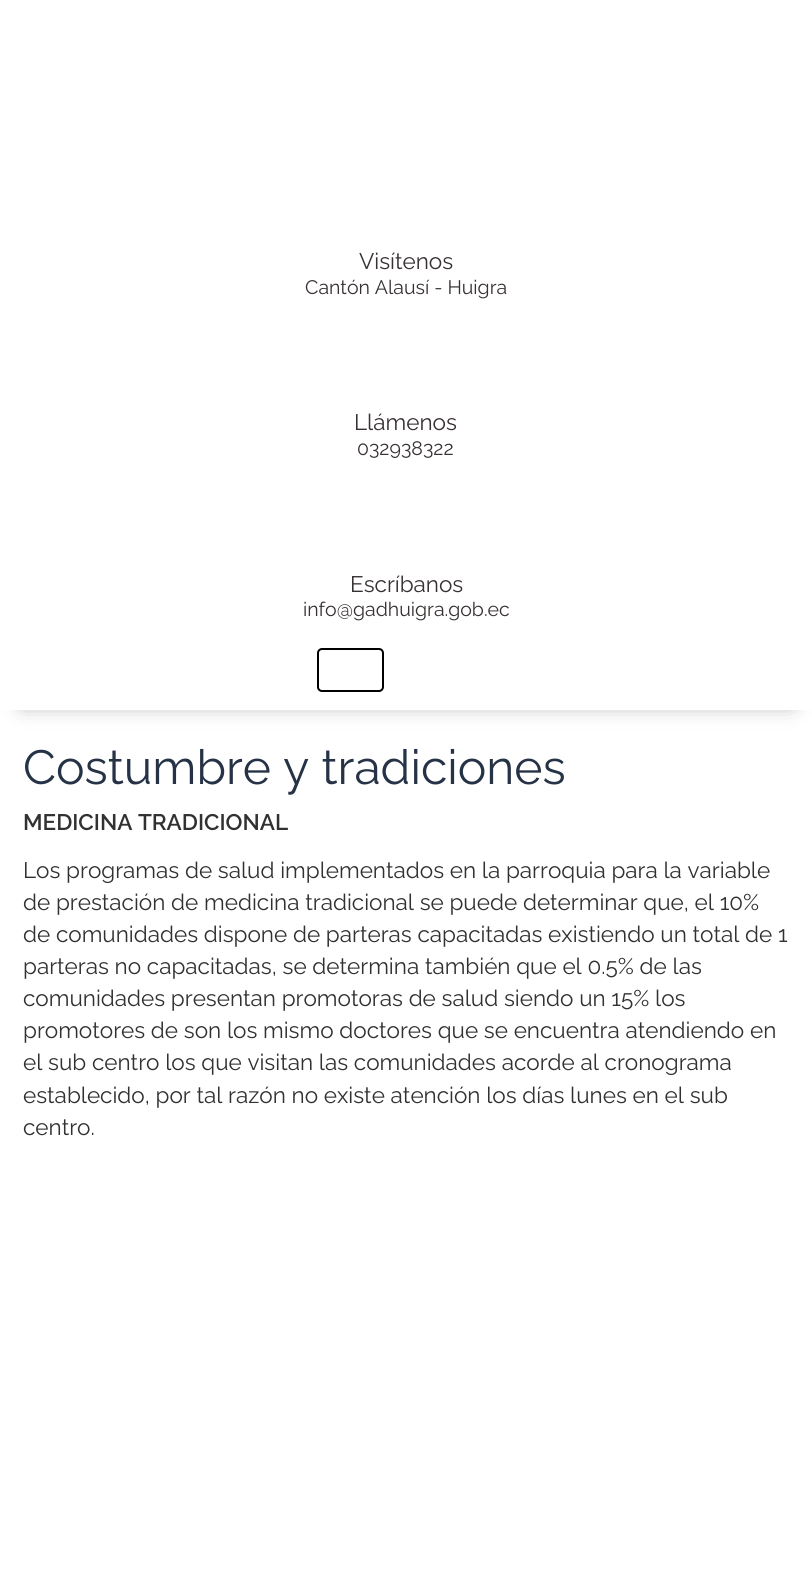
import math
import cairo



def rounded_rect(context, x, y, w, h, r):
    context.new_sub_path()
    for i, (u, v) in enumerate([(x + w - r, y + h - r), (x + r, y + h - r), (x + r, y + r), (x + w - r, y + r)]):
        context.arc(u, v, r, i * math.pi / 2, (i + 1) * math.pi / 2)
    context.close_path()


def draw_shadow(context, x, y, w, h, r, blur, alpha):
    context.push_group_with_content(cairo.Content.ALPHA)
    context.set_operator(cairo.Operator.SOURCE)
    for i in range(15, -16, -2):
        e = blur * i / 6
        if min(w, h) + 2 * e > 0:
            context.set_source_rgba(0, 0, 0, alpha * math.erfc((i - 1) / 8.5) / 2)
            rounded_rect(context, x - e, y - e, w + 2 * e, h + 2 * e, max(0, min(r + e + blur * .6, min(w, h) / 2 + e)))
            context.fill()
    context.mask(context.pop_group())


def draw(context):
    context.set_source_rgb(1, 1, 1)
    context.paint()
    context.save()
    context.set_fill_rule(cairo.FillRule.EVEN_ODD)
    context.new_path()
    context.move_to(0, 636)
    context.line_to(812, 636)
    context.line_to(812, 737)
    context.line_to(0, 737)
    context.close_path()
    context.move_to(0, 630)
    context.line_to(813, 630)
    context.line_to(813, 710)
    context.line_to(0, 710)
    context.close_path()
    context.clip()
    context.set_source_rgb(75 / 255, 61 / 255, 61 / 255)
    draw_shadow(context, 23, 669, 768, 35, 0, 10.5, 0.5)
    context.restore()
    rounded_rect(context, 318, 649, 65, 42, 4)
    context.set_source_rgb(0, 0, 0)
    context.stroke()
    context.select_font_face("Raleway")
    context.set_font_size(22.5)
    context.set_source_rgb(56 / 255, 49 / 255, 49 / 255)
    context.move_to(359, 269)
    context.show_text("Visítenos")
    context.set_font_size(19.5)
    context.move_to(305, 294)
    context.show_text("Cantón Alausí - Huigra")
    context.set_font_size(22.5)
    context.move_to(354, 430)
    context.show_text("Llámenos")
    context.set_font_size(19.5)
    context.move_to(357, 455)
    context.show_text("032938322")
    context.set_font_size(22.5)
    context.move_to(350, 592)
    context.show_text("Escríbanos")
    context.set_font_size(19.5)
    context.move_to(303, 616)
    context.show_text("info@gadhuigra.gob.ec")
    context.set_font_size(48)
    context.set_source_rgb(38 / 255, 50 / 255, 70 / 255)
    context.move_to(23, 784)
    context.show_text("Costumbre y tradiciones")
    context.select_font_face("Raleway SemiBold")
    context.set_font_size(22.5)
    context.set_source_rgb(49 / 255, 49 / 255, 49 / 255)
    context.move_to(23, 830)
    context.show_text("MEDICINA TRADICIONAL")
    context.select_font_face("Raleway")
    context.move_to(23, 878)
    context.show_text("Los programas de salud implementados en la parroquia para la variable")
    context.move_to(23, 910)
    context.show_text("de prestación de medicina tradicional se puede determinar que, el 10%")
    context.move_to(23, 942)
    context.show_text("de comunidades dispone de parteras capacitadas existiendo un total de 1")
    context.move_to(23, 974)
    context.show_text("parteras no capacitadas, se determina también que el 0.5% de las")
    context.move_to(23, 1006)
    context.show_text("comunidades presentan promotoras de salud siendo un 15% los")
    context.move_to(23, 1038)
    context.show_text("promotores de son los mismo doctores que se encuentra atendiendo en")
    context.move_to(23, 1070)
    context.show_text("el sub centro los que visitan las comunidades acorde al cronograma")
    context.move_to(23, 1103)
    context.show_text("establecido, por tal razón no existe atención los días lunes en el sub")
    context.move_to(23, 1135)
    context.show_text("centro.")


surface = cairo.ImageSurface(cairo.Format.RGB24, 812, 1580)
context = cairo.Context(surface)
options = cairo.FontOptions()
options.set_hint_metrics(cairo.HintMetrics.OFF)
options.set_hint_style(cairo.HintStyle.NONE)
context.set_font_options(options)
context.set_miter_limit(4)
draw(context)
surface.write_to_png("out.png")
